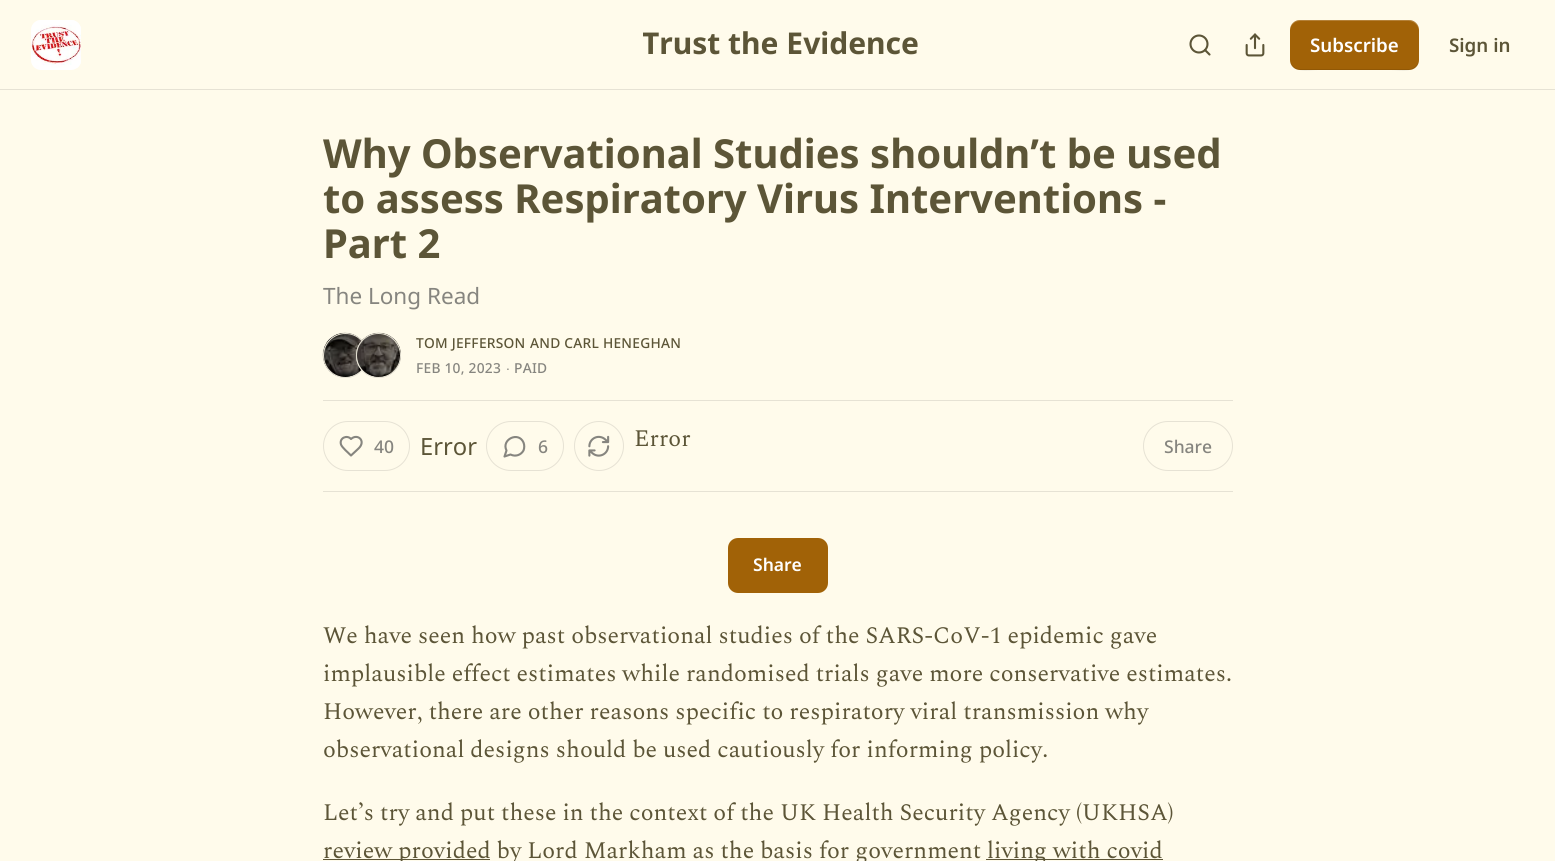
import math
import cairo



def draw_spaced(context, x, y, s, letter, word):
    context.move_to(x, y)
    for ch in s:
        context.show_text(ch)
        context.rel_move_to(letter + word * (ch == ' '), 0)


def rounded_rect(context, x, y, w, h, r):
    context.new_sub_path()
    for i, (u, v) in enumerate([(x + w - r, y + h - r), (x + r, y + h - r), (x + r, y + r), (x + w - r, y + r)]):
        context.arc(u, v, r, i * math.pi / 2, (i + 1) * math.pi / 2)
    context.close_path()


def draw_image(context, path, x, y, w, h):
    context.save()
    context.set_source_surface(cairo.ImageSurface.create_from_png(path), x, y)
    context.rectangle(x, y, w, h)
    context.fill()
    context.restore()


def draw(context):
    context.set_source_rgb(1, 251 / 255, 235 / 255)
    context.paint()
    context.set_source_rgb(230 / 255, 226 / 255, 212 / 255)
    context.rectangle(0, 89, 1555, 1)
    context.fill()
    context.set_source_rgb(1, 1, 1)
    rounded_rect(context, 31, 20, 50, 50, 10)
    context.fill()
    draw_image(context, "images/1.png", 31, 20, 50, 48)
    context.arc(1199, 44, 8.5, 0, 2 * math.pi)
    context.set_source_rgb(92 / 255, 85 / 255, 55 / 255)
    context.set_line_width(2.1)
    context.stroke()
    context.new_path()
    context.move_to(1209.5, 54.5)
    context.line_to(1205, 50)
    context.set_line_cap(cairo.LineCap.ROUND)
    context.set_line_join(cairo.LineJoin.ROUND)
    context.stroke()
    draw_image(context, "images/2.png", 1245, 33, 20, 24)
    context.set_source_rgb(161 / 255, 98 / 255, 7 / 255)
    rounded_rect(context, 1290, 20, 129, 50, 10)
    context.fill()
    context.set_source_rgba(0, 0, 0, 0.1)
    context.new_path()
    context.move_to(1290, 59)
    context.curve_to(1290, 74, 1308, 70, 1318, 70)
    context.line_to(1391, 70)
    context.curve_to(1401, 70, 1419, 74, 1419, 59)
    context.curve_to(1419, 64, 1414, 69, 1409, 69)
    context.line_to(1300, 69)
    context.curve_to(1294, 69, 1290, 64, 1290, 59)
    context.close_path()
    context.fill()
    context.set_source_rgba(1, 1, 1, 0.2)
    context.new_path()
    context.move_to(1300, 21)
    context.line_to(1409, 21)
    context.curve_to(1414, 21, 1419, 26, 1419, 31)
    context.curve_to(1419, 16, 1401, 20, 1391, 20)
    context.line_to(1318, 20)
    context.curve_to(1308, 20, 1290, 16, 1290, 31)
    context.curve_to(1290, 26, 1294, 21, 1300, 21)
    context.close_path()
    context.fill()
    context.arc(345.5, 355.5, 22, 0, 2 * math.pi)
    context.set_source_rgb(230 / 255, 226 / 255, 212 / 255)
    context.set_line_width(1)
    context.set_line_cap(cairo.LineCap.BUTT)
    context.set_line_join(cairo.LineJoin.MITER)
    context.stroke()
    draw_image(context, "images/3.png", 322, 332, 42, 46)
    context.arc(345.5, 355.5, 22, 0, 2 * math.pi)
    context.stroke()
    context.arc(378.5, 355.5, 22, 0, 2 * math.pi)
    context.stroke()
    draw_image(context, "images/4.png", 356, 332, 45, 46)
    context.arc(378.5, 355.5, 22, 0, 2 * math.pi)
    context.stroke()
    context.rectangle(323, 400, 910, 1)
    context.fill()
    context.rectangle(323, 491, 910, 1)
    context.fill()
    rounded_rect(context, 323.5, 421.5, 86, 49, 24.5)
    context.stroke()
    context.new_path()
    context.move_to(358.5, 448.5)
    context.curve_to(366.5, 441, 357.5, 433, 351, 439)
    context.curve_to(347, 434.5, 339, 438, 341, 444.5)
    context.curve_to(342, 447.5, 348.5, 453, 351, 455.5)
    context.close_path()
    context.set_source_rgb(134 / 255, 133 / 255, 127 / 255)
    context.set_line_width(2.1)
    context.set_line_cap(cairo.LineCap.ROUND)
    context.set_line_join(cairo.LineJoin.ROUND)
    context.stroke()
    rounded_rect(context, 486.5, 421.5, 77, 49, 24.5)
    context.set_source_rgb(230 / 255, 226 / 255, 212 / 255)
    context.set_line_width(1)
    context.set_line_cap(cairo.LineCap.BUTT)
    context.set_line_join(cairo.LineJoin.MITER)
    context.stroke()
    context.new_path()
    context.move_to(510.5, 454.5)
    context.curve_to(515.5, 457, 521, 455, 523.5, 450.5)
    context.curve_to(524.5, 448, 524.5, 445, 523.5, 442.5)
    context.curve_to(518.5, 431, 501, 439.5, 506.5, 450.5)
    context.line_to(504.5, 456.5)
    context.close_path()
    context.set_source_rgb(134 / 255, 133 / 255, 127 / 255)
    context.set_line_width(2.1)
    context.set_line_cap(cairo.LineCap.ROUND)
    context.set_line_join(cairo.LineJoin.ROUND)
    context.stroke()
    context.arc(599, 446, 24.5, 0, 2 * math.pi)
    context.set_source_rgb(230 / 255, 226 / 255, 212 / 255)
    context.set_line_width(1)
    context.set_line_cap(cairo.LineCap.BUTT)
    context.set_line_join(cairo.LineJoin.MITER)
    context.stroke()
    draw_image(context, "images/5.png", 588, 435, 22, 22)
    rounded_rect(context, 1143.5, 421.5, 89, 49, 24.5)
    context.stroke()
    context.set_source_rgb(161 / 255, 98 / 255, 7 / 255)
    rounded_rect(context, 728, 538, 100, 55, 10)
    context.fill()
    context.set_source_rgb(92 / 255, 85 / 255, 55 / 255)
    context.rectangle(323, 859, 167, 1)
    context.fill()
    context.rectangle(986, 859, 177, 1)
    context.fill()
    context.save()
    context.rectangle(643, 24, 276, 42)
    context.clip()
    context.select_font_face("Noto Sans", cairo.FontSlant.NORMAL, cairo.FontWeight.BOLD)
    context.set_font_size(30)
    context.move_to(642, 54)
    context.show_text("Trust the Evidence")
    context.restore()
    context.select_font_face("Noto Sans SemiBold")
    context.set_font_size(18.75)
    context.set_source_rgb(1, 1, 1)
    context.move_to(1310, 52)
    context.show_text("Subscribe")
    context.set_source_rgb(92 / 255, 85 / 255, 55 / 255)
    context.move_to(1449, 52)
    context.show_text("Sign in")
    context.select_font_face("Noto Sans", cairo.FontSlant.NORMAL, cairo.FontWeight.BOLD)
    context.set_font_size(40)
    context.move_to(323, 168)
    context.show_text("Why Observational Studies shouldn’t be used")
    context.move_to(323, 213)
    context.show_text("to assess Respiratory Virus Interventions -")
    context.move_to(323, 258)
    context.show_text("Part 2")
    context.select_font_face("Noto Sans")
    context.set_font_size(22.5)
    context.set_source_rgb(134 / 255, 133 / 255, 127 / 255)
    context.move_to(323, 304)
    context.show_text("The Long Read")
    context.select_font_face("Noto Sans Medium")
    context.set_font_size(13.75)
    context.set_source_rgb(92 / 255, 85 / 255, 55 / 255)
    draw_spaced(context, 416, 348, "TOM JEFFERSON", 0.25, 0)
    draw_spaced(context, 530, 348, "AND CARL HENEGHAN", 0.25, 0)
    context.set_source_rgb(134 / 255, 133 / 255, 127 / 255)
    draw_spaced(context, 416, 373, "FEB 10, 2023", 0.25, 0)
    context.select_font_face("Liberation Sans")
    draw_spaced(context, 506, 373, "∙", 0.25, 0)
    context.select_font_face("Noto Sans Medium")
    draw_spaced(context, 514, 373, "PAID", 0.25, 0)
    context.set_font_size(17.5)
    context.move_to(374, 453)
    context.show_text("40")
    context.select_font_face("Noto Sans")
    context.set_font_size(23.75)
    context.set_source_rgb(92 / 255, 85 / 255, 55 / 255)
    context.move_to(420, 455)
    context.show_text("Error")
    context.select_font_face("Noto Sans Medium")
    context.set_font_size(17.5)
    context.set_source_rgb(134 / 255, 133 / 255, 127 / 255)
    context.move_to(538, 453)
    context.show_text("6")
    context.select_font_face("Spectral")
    context.set_font_size(23.75)
    context.set_source_rgb(92 / 255, 85 / 255, 55 / 255)
    context.move_to(634, 446)
    context.show_text("Error")
    context.select_font_face("Noto Sans Medium")
    context.set_font_size(17.5)
    context.set_source_rgb(134 / 255, 133 / 255, 127 / 255)
    context.move_to(1164, 453)
    context.show_text("Share")
    context.select_font_face("Noto Sans SemiBold")
    context.set_source_rgb(1, 1, 1)
    context.move_to(753, 571)
    context.show_text("Share")
    context.select_font_face("Spectral")
    context.set_font_size(23.75)
    context.set_source_rgb(92 / 255, 85 / 255, 55 / 255)
    context.move_to(323, 643)
    context.show_text("We have seen how past observational studies of the SARS-CoV-1 epidemic gave")
    context.move_to(323, 681)
    context.show_text("implausible effect estimates while randomised trials gave more conservative estimates.")
    context.move_to(323, 719)
    context.show_text("However, there are other reasons specific to respiratory viral transmission why")
    context.move_to(323, 757)
    context.show_text("observational designs should be used cautiously for informing policy.")
    context.move_to(323, 820)
    context.show_text("Let’s try and put these in the context of the UK Health Security Agency (UKHSA)")
    context.move_to(323, 858)
    context.show_text("review provided by Lord Markham as the basis for government")
    context.move_to(987, 858)
    context.show_text("living with covid")


surface = cairo.ImageSurface(cairo.Format.RGB24, 1555, 861)
context = cairo.Context(surface)
options = cairo.FontOptions()
options.set_hint_metrics(cairo.HintMetrics.OFF)
options.set_hint_style(cairo.HintStyle.NONE)
context.set_font_options(options)
context.set_miter_limit(4)
draw(context)
surface.write_to_png("out.png")
